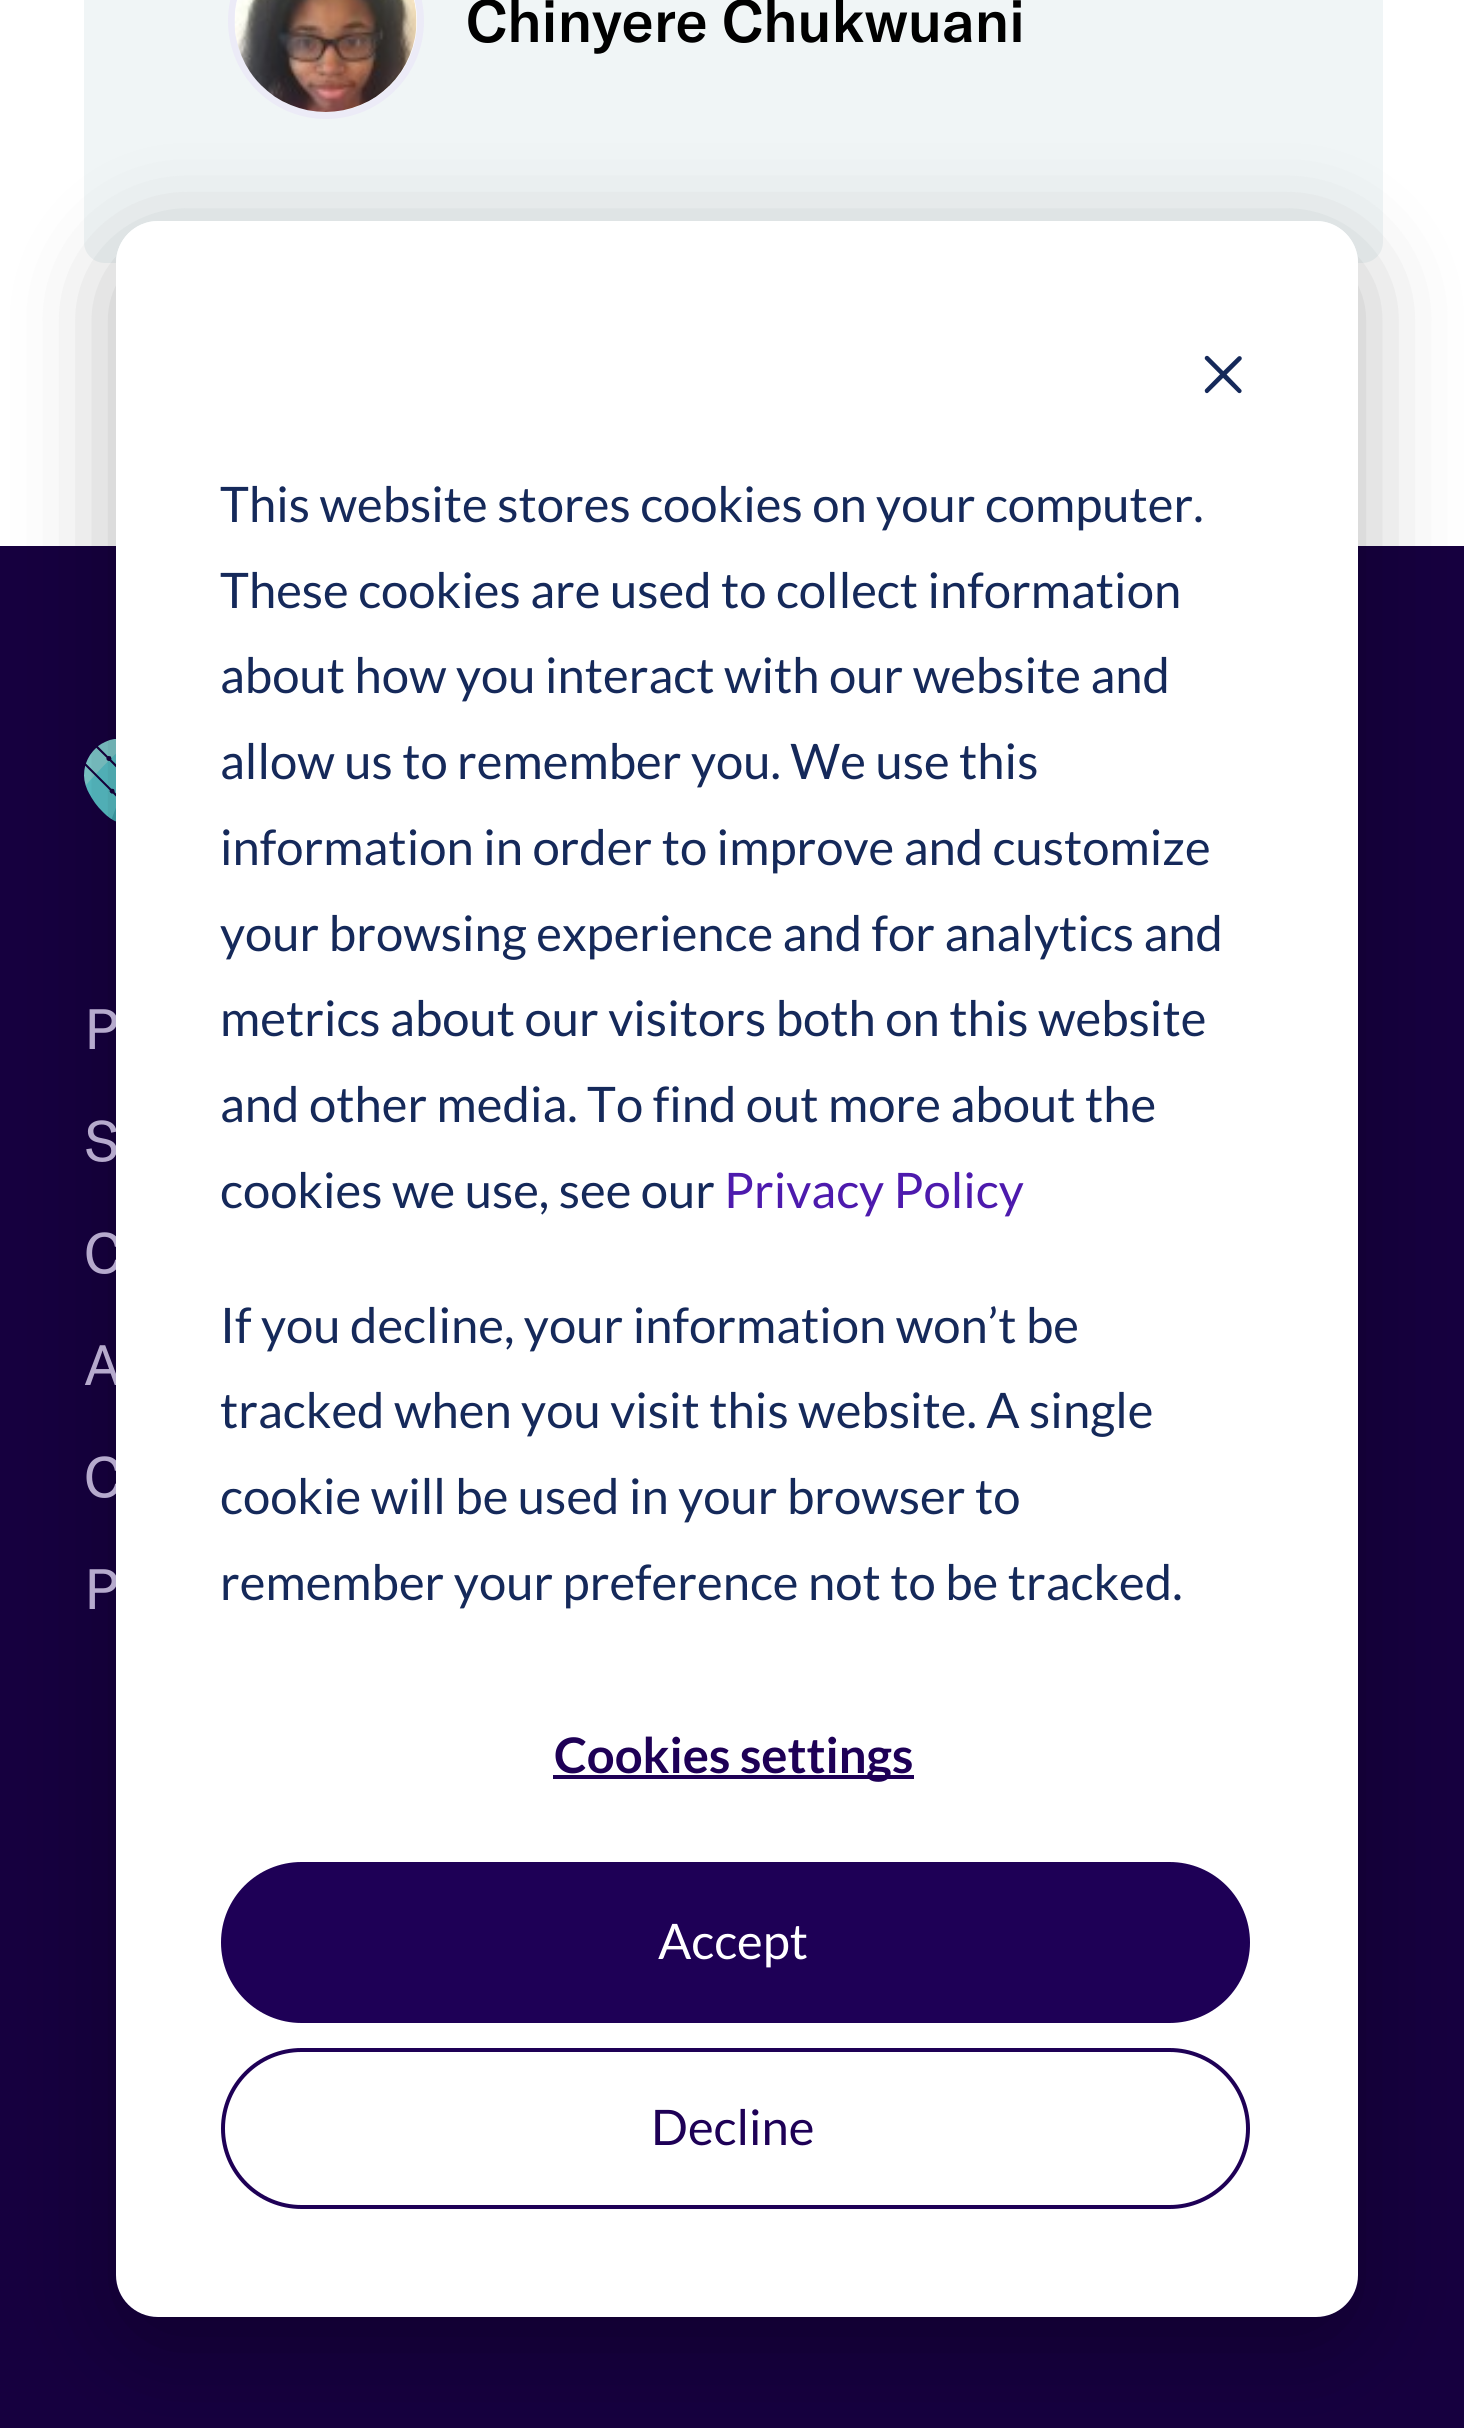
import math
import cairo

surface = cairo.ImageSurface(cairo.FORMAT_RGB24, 1464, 2428)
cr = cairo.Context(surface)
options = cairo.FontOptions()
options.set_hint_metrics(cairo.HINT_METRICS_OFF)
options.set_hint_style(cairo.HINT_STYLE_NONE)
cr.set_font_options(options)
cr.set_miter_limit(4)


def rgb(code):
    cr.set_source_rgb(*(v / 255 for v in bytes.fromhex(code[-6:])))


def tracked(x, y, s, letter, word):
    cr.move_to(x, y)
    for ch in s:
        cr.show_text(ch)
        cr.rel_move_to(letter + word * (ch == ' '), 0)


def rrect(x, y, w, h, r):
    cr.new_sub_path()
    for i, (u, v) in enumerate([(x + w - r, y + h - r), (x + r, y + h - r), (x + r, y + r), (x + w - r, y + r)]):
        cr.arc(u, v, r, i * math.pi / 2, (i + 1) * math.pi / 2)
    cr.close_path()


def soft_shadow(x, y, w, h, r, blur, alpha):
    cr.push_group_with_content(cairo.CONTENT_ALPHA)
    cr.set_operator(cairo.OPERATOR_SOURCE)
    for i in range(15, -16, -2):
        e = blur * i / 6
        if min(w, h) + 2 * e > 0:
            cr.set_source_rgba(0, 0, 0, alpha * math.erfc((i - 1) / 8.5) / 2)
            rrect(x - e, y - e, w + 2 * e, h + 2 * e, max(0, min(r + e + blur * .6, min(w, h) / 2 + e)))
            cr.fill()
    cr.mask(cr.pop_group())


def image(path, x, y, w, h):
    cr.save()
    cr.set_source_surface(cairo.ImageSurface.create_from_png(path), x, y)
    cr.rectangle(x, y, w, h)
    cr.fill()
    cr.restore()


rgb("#ffffff")
cr.paint()
rgb("#f0f5f6")
rrect(84, -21, 1299, 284, 21)
cr.fill()
rgb("#ffffff")
cr.arc(326, 21, 94.5, 0, 2 * math.pi)
cr.fill_preserve()
rgb("#ecebf7")
cr.set_line_width(7)
cr.stroke()
image("img/1.png", 234, 0, 183, 112)
rgb("#16003f")
cr.rectangle(0, 546, 1464, 1882)
cr.fill()
image("img/2.png", 84, 739, 32, 83)
cr.save()
cr.set_fill_rule(cairo.FILL_RULE_EVEN_ODD)
cr.new_path()
cr.move_to(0, 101)
cr.line_to(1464, 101)
cr.line_to(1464, 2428)
cr.line_to(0, 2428)
cr.close_path()
cr.move_to(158, 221)
cr.line_to(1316, 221)
cr.curve_to(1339, 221, 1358, 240, 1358, 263)
cr.line_to(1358, 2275)
cr.curve_to(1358, 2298, 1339, 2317, 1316, 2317)
cr.line_to(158, 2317)
cr.curve_to(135, 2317, 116, 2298, 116, 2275)
cr.line_to(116, 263)
cr.curve_to(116, 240, 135, 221, 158, 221)
cr.close_path()
cr.clip()
rgb("#000000")
soft_shadow(116, 249, 1242, 2096, 42, 49, 0.28)
cr.restore()
cr.select_font_face("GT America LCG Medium")
cr.set_font_size(59)
rgb("#000000")
tracked(466, 42, "Chinyere Chukwuani", -0.5, 0)
cr.select_font_face("GT America LCG")
cr.set_font_size(56)
rgb("#b6aacd")
for x, y, s in [
    (84, 1049, "P"),
    (84, 1161, "S"),
    (84, 1273, "C"),
    (84, 1385, "A"),
    (84, 1497, "C"),
    (84, 1609, "P"),
]:
    cr.move_to(x, y)
    cr.show_text(s)
rgb("#ffffff")
rrect(116, 221, 1242, 2096, 42)
cr.fill()
image("img/3.png", 1204, 355, 38, 39)
cr.select_font_face("Lato")
cr.set_font_size(49)
rgb("#15295a")
for x, y, s in [
    (220, 522, "This website stores cookies on your computer."),
    (220, 608, "These cookies are used to collect information"),
    (220, 693, "about how you interact with our website and"),
    (220, 779, "allow us to remember you. We use this"),
    (220, 865, "information in order to improve and customize"),
    (220, 951, "your browsing experience and for analytics and"),
    (220, 1036, "metrics about our visitors both on this website"),
    (220, 1122, "and other media. To find out more about the"),
    (220, 1208, "cookies we use, see our"),
]:
    cr.move_to(x, y)
    cr.show_text(s)
rgb("#4d1aad")
cr.move_to(724, 1208)
cr.show_text("Privacy Policy")
rgb("#15295a")
for x, y, s in [
    (220, 1343, "If you decline, your information won’t be"),
    (220, 1428, "tracked when you visit this website. A single"),
    (220, 1514, "cookie will be used in your browser to"),
    (220, 1600, "remember your preference not to be tracked."),
]:
    cr.move_to(x, y)
    cr.show_text(s)
rgb("#1e0056")
cr.rectangle(553, 1775, 361, 4)
cr.fill()
cr.select_font_face("Lato", cairo.FONT_SLANT_NORMAL, cairo.FONT_WEIGHT_BOLD)
cr.move_to(554, 1773)
cr.show_text("Cookies settings")
rrect(223, 1864, 1025, 157, 78.5)
cr.fill_preserve()
cr.set_line_width(4)
cr.stroke()
cr.select_font_face("Lato")
rgb("#ffffff")
cr.move_to(658, 1959)
cr.show_text("Accept")
rrect(223, 2050, 1025, 157, 78.5)
rgb("#1e0056")
cr.stroke()
cr.move_to(651, 2145)
cr.show_text("Decline")
surface.write_to_png("page.png")
